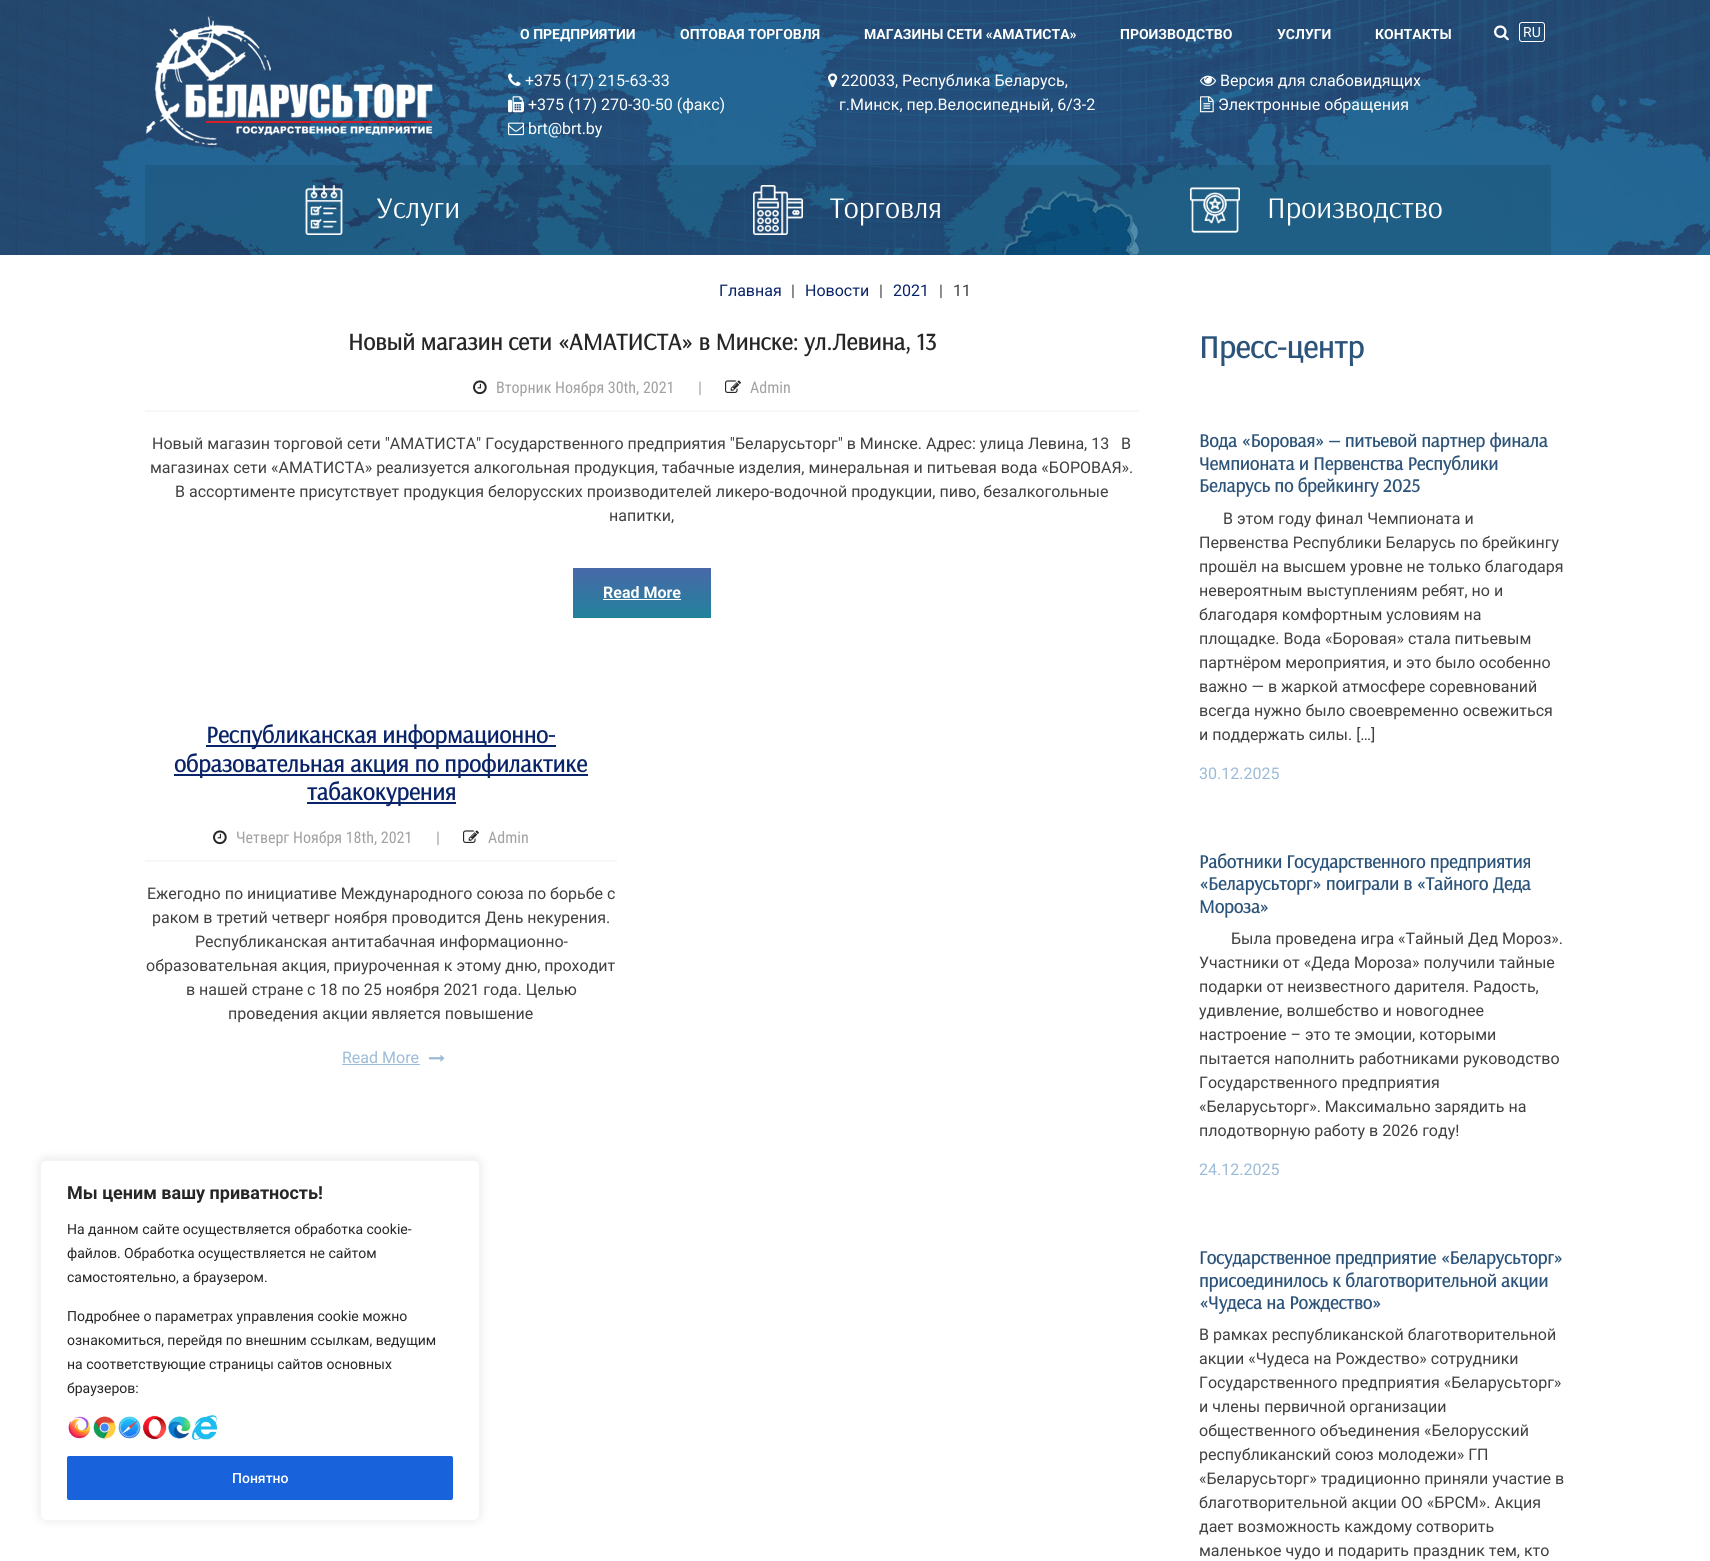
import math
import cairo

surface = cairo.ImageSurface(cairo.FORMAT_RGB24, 1710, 1561)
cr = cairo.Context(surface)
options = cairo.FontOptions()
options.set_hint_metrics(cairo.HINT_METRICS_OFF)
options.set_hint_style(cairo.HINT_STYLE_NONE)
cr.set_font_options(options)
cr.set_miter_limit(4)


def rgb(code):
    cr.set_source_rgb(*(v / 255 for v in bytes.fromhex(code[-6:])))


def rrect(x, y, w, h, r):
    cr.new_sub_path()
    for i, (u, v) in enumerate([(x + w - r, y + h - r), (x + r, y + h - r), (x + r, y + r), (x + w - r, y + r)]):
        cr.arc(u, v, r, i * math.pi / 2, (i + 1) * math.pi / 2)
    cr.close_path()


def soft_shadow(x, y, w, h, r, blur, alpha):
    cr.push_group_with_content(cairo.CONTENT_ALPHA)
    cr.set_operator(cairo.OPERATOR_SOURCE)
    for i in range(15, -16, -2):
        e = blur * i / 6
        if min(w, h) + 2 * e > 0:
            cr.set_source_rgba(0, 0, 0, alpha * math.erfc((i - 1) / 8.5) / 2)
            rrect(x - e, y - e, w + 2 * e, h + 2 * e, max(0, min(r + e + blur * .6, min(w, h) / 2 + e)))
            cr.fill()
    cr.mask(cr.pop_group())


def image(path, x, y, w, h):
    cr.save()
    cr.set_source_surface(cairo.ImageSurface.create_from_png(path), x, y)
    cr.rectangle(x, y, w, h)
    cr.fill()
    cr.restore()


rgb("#ffffff")
cr.paint()
image("img/1.png", 0, 0, 1710, 255)
image("img/2.png", 145, 16, 288, 129)
image("img/3.png", 1494, 25, 15, 16)
rrect(1519.5, 22.5, 25, 19, 2.5)
rgb("#ffffff")
cr.set_line_width(1)
cr.stroke()
image("img/4.png", 508, 73, 13, 13)
image("img/5.png", 508, 96, 16, 17)
image("img/6.png", 508, 122, 16, 14)
image("img/7.png", 828, 73, 10, 15)
image("img/8.png", 1200, 75, 16, 11)
image("img/9.png", 1200, 96, 14, 17)
cr.set_source_rgba(0, 0, 0, 0.1)
cr.rectangle(145, 165, 469, 90)
cr.fill()
image("img/10.png", 305, 185, 38, 50)
cr.rectangle(614, 165, 468, 90)
cr.fill()
image("img/11.png", 753, 185, 50, 50)
cr.rectangle(1082, 165, 469, 90)
cr.fill()
image("img/12.png", 1190, 187, 50, 46)
rgb("#f7f7f7")
cr.rectangle(145, 410, 994, 2)
cr.fill()
image("img/13.png", 473, 380, 14, 15)
image("img/14.png", 725, 380, 16, 13)
gradient = cairo.LinearGradient(573, 568, 573, 618)
gradient.add_color_stop_rgba(0, 0.282, 0.408, 0.659, 1)
gradient.add_color_stop_rgba(1, 0.133, 0.51, 0.612, 1)
cr.set_source(gradient)
cr.rectangle(573, 568, 138, 50)
cr.fill()
for x, y, w, h, color in [
    (603, 599, 78, 1, "#ffffff"),
    (206, 745, 350, 2, "#0a246a"),
    (174, 774, 414, 2, "#0a246a"),
    (307, 802, 149, 2, "#0a246a"),
    (145, 860, 472, 2, "#f7f7f7"),
]:
    rgb(color)
    cr.rectangle(x, y, w, h)
    cr.fill()
image("img/13.png", 213, 830, 14, 15)
image("img/14.png", 463, 830, 16, 13)
rgb("#9cbbd8")
cr.rectangle(342, 1064, 78, 1)
cr.fill()
image("img/15.png", 429, 1055, 16, 7)
rgb("#acabab")
soft_shadow(40, 1159, 440, 361, 6, 5, 0.3)
rgb("#ffffff")
rrect(40.5, 1160.5, 439, 360, 5.5)
cr.fill_preserve()
rgb("#f4f4f4")
cr.stroke()
image("img/16.png", 68, 1416, 23, 23)
image("img/17.png", 93, 1416, 23, 23)
image("img/18.png", 118, 1416, 23, 23)
image("img/19.png", 142, 1415, 25, 25)
image("img/20.png", 168, 1416, 23, 23)
image("img/21.png", 192, 1415, 25, 25)
rgb("#1863dc")
rrect(68, 1457, 384, 42, 1)
cr.fill_preserve()
cr.set_line_width(2)
cr.stroke()
cr.select_font_face("Roboto", cairo.FONT_SLANT_NORMAL, cairo.FONT_WEIGHT_BOLD)
cr.set_font_size(14)
rgb("#ffffff")
for x, y, s in [
    (520, 39, "О ПРЕДПРИЯТИИ"),
    (680, 39, "ОПТОВАЯ ТОРГОВЛЯ"),
    (864, 39, "МАГАЗИНЫ СЕТИ «АМАТИСТА»"),
    (1120, 39, "ПРОИЗВОДСТВО"),
    (1277, 39, "УСЛУГИ"),
    (1375, 39, "КОНТАКТЫ"),
]:
    cr.move_to(x, y)
    cr.show_text(s)
cr.select_font_face("Roboto")
cr.move_to(1523, 37)
cr.show_text("RU")
cr.set_font_size(16)
for x, y, s in [
    (525, 86, "+375 (17) 215-63-33"),
    (528, 110, "+375 (17) 270-30-50 (факс)"),
    (528, 134, "brt@brt.by"),
    (841, 86, "220033, Республика Беларусь,"),
    (839, 110, "г.Минск, пер.Велосипедный, 6/3-2"),
    (1220, 86, "Версия для слабовидящих"),
    (1218, 110, "Электронные обращения"),
]:
    cr.move_to(x, y)
    cr.show_text(s)
cr.select_font_face("Arsenal")
cr.set_font_size(30)
for x, y, s in [
    (376, 218, "Услуги"),
    (830, 218, "Торговля"),
    (1267, 218, "Производство"),
]:
    cr.move_to(x, y)
    cr.show_text(s)
cr.select_font_face("Roboto")
cr.set_font_size(16)
rgb("#0a246a")
cr.move_to(719, 296)
cr.show_text("Главная")
rgb("#404040")
cr.move_to(791, 296)
cr.show_text("|")
rgb("#0a246a")
cr.move_to(805, 296)
cr.show_text("Новости")
rgb("#404040")
cr.move_to(879, 296)
cr.show_text("|")
rgb("#0a246a")
cr.move_to(893, 296)
cr.show_text("2021")
rgb("#404040")
cr.move_to(939, 296)
cr.show_text("|")
cr.move_to(953, 296)
cr.show_text("11")
cr.select_font_face("Arsenal", cairo.FONT_SLANT_NORMAL, cairo.FONT_WEIGHT_BOLD)
cr.set_font_size(24)
rgb("#262626")
cr.move_to(348, 350)
cr.show_text("Новый магазин сети «АМАТИСТА» в Минске: ул.Левина, 13")
cr.select_font_face("Roboto Condensed")
cr.set_font_size(16)
rgb("#a1a1a1")
for x, y, s in [
    (496, 393, "Вторник Ноября 30th, 2021"),
    (698, 393, "|"),
    (750, 393, "Admin"),
]:
    cr.move_to(x, y)
    cr.show_text(s)
cr.select_font_face("Roboto")
rgb("#404040")
for x, y, s in [
    (152, 449, "Новый магазин торговой сети \"АМАТИСТА\" Государственного предприятия \"Беларусьторг\" в Минске. Адрес: улица Левина, 13   В"),
    (150, 473, "магазинах сети «АМАТИСТА» реализуется алкогольная продукция, табачные изделия, минеральная и питьевая вода «БОРОВАЯ»."),
    (175, 497, "В ассортименте присутствует продукция белорусских производителей ликеро-водочной продукции, пиво, безалкогольные"),
    (609, 521, "напитки,"),
]:
    cr.move_to(x, y)
    cr.show_text(s)
cr.select_font_face("Roboto", cairo.FONT_SLANT_NORMAL, cairo.FONT_WEIGHT_BOLD)
rgb("#ffffff")
cr.move_to(603, 598)
cr.show_text("Read More")
cr.select_font_face("Arsenal", cairo.FONT_SLANT_NORMAL, cairo.FONT_WEIGHT_BOLD)
cr.set_font_size(24)
rgb("#0a246a")
for x, y, s in [
    (206, 743, "Республиканская информационно-"),
    (174, 772, "образовательная акция по профилактике"),
    (307, 800, "табакокурения"),
]:
    cr.move_to(x, y)
    cr.show_text(s)
cr.select_font_face("Roboto Condensed")
cr.set_font_size(16)
rgb("#a1a1a1")
for x, y, s in [
    (236, 843, "Четверг Ноября 18th, 2021"),
    (436, 843, "|"),
    (488, 843, "Admin"),
]:
    cr.move_to(x, y)
    cr.show_text(s)
cr.select_font_face("Roboto")
rgb("#404040")
for x, y, s in [
    (147, 899, "Ежегодно по инициативе Международного союза по борьбе с"),
    (152, 923, "раком в третий четверг ноября проводится День некурения."),
    (195, 947, "Республиканская антитабачная информационно-"),
    (146, 971, "образовательная акция, приуроченная к этому дню, проходит"),
    (186, 995, "в нашей стране с 18 по 25 ноября 2021 года. Целью"),
    (228, 1019, "проведения акции является повышение"),
]:
    cr.move_to(x, y)
    cr.show_text(s)
rgb("#9cbbd8")
cr.move_to(342, 1063)
cr.show_text("Read More")
cr.select_font_face("Arsenal", cairo.FONT_SLANT_NORMAL, cairo.FONT_WEIGHT_BOLD)
cr.set_font_size(32)
rgb("#2c5379")
cr.move_to(1199, 358)
cr.show_text("Пресс-центр")
cr.set_font_size(18.75)
for x, y, s in [
    (1199, 447, "Вода «Боровая» — питьевой партнер финала"),
    (1199, 470, "Чемпионата и Первенства Республики"),
    (1199, 492, "Беларусь по брейкингу 2025"),
]:
    cr.move_to(x, y)
    cr.show_text(s)
cr.select_font_face("Roboto")
cr.set_font_size(16)
rgb("#404040")
for x, y, s in [
    (1223, 524, "В этом году финал Чемпионата и"),
    (1199, 548, "Первенства Республики Беларусь по брейкингу"),
    (1199, 572, "прошёл на высшем уровне не только благодаря"),
    (1199, 596, "невероятным выступлениям ребят, но и"),
    (1199, 620, "благодаря комфортным условиям на"),
    (1199, 644, "площадке. Вода «Боровая» стала питьевым"),
    (1199, 668, "партнёром мероприятия, и это было особенно"),
    (1199, 692, "важно — в жаркой атмосфере соревнований"),
    (1199, 716, "всегда нужно было своевременно освежиться"),
    (1199, 740, "и поддержать силы. […]"),
]:
    cr.move_to(x, y)
    cr.show_text(s)
rgb("#9cbbd8")
cr.move_to(1199, 779)
cr.show_text("30.12.2025")
cr.select_font_face("Arsenal", cairo.FONT_SLANT_NORMAL, cairo.FONT_WEIGHT_BOLD)
cr.set_font_size(18.75)
rgb("#2c5379")
for x, y, s in [
    (1199, 868, "Работники Государственного предприятия"),
    (1199, 890, "«Беларусьторг» поиграли в «Тайного Деда"),
    (1199, 913, "Мороза»"),
]:
    cr.move_to(x, y)
    cr.show_text(s)
cr.select_font_face("Roboto")
cr.set_font_size(16)
rgb("#404040")
for x, y, s in [
    (1231, 944, "Была проведена игра «Тайный Дед Мороз»."),
    (1199, 968, "Участники от «Деда Мороза» получили тайные"),
    (1199, 992, "подарки от неизвестного дарителя. Радость,"),
    (1199, 1016, "удивление, волшебство и новогоднее"),
    (1199, 1040, "настроение – это те эмоции, которыми"),
    (1199, 1064, "пытается наполнить работниками руководство"),
    (1199, 1088, "Государственного предприятия"),
    (1199, 1112, "«Беларусьторг». Максимально зарядить на"),
    (1199, 1136, "плодотворную работу в 2026 году!"),
]:
    cr.move_to(x, y)
    cr.show_text(s)
rgb("#9cbbd8")
cr.move_to(1199, 1175)
cr.show_text("24.12.2025")
cr.select_font_face("Arsenal", cairo.FONT_SLANT_NORMAL, cairo.FONT_WEIGHT_BOLD)
cr.set_font_size(18.75)
rgb("#2c5379")
for x, y, s in [
    (1199, 1264, "Государственное предприятие «Беларусьторг»"),
    (1199, 1287, "присоединилось к благотворительной акции"),
    (1199, 1309, "«Чудеса на Рождество»"),
]:
    cr.move_to(x, y)
    cr.show_text(s)
cr.select_font_face("Roboto")
cr.set_font_size(16)
rgb("#404040")
for x, y, s in [
    (1199, 1340, "В рамках республиканской благотворительной"),
    (1199, 1364, "акции «Чудеса на Рождество» сотрудники"),
    (1199, 1388, "Государственного предприятия «Беларусьторг»"),
    (1199, 1412, "и члены первичной организации"),
    (1199, 1436, "общественного объединения «Белорусский"),
    (1199, 1460, "республиканский союз молодежи» ГП"),
    (1199, 1484, "«Беларусьторг» традиционно приняли участие в"),
    (1199, 1508, "благотворительной акции ОО «БРСМ». Акция"),
    (1199, 1532, "дает возможность каждому сотворить"),
    (1199, 1556, "маленькое чудо и подарить праздник тем, кто"),
]:
    cr.move_to(x, y)
    cr.show_text(s)
cr.select_font_face("Roboto", cairo.FONT_SLANT_NORMAL, cairo.FONT_WEIGHT_BOLD)
cr.set_font_size(18)
rgb("#262626")
cr.move_to(67, 1199)
cr.show_text("Мы ценим вашу приватность!")
cr.select_font_face("Roboto")
cr.set_font_size(14)
for x, y, s in [
    (67, 1234, "На данном сайте осуществляется обработка cookie-"),
    (67, 1258, "файлов. Обработка осуществляется не сайтом"),
    (67, 1282, "самостоятельно, а браузером."),
    (67, 1321, "Подробнее о параметрах управления cookie можно"),
    (67, 1345, "ознакомиться, перейдя по внешним ссылкам, ведущим"),
    (67, 1369, "на соответствующие страницы сайтов основных"),
    (67, 1393, "браузеров:"),
]:
    cr.move_to(x, y)
    cr.show_text(s)
cr.select_font_face("Roboto Medium")
rgb("#ffffff")
cr.move_to(232, 1483)
cr.show_text("Понятно")
surface.write_to_png("page.png")
